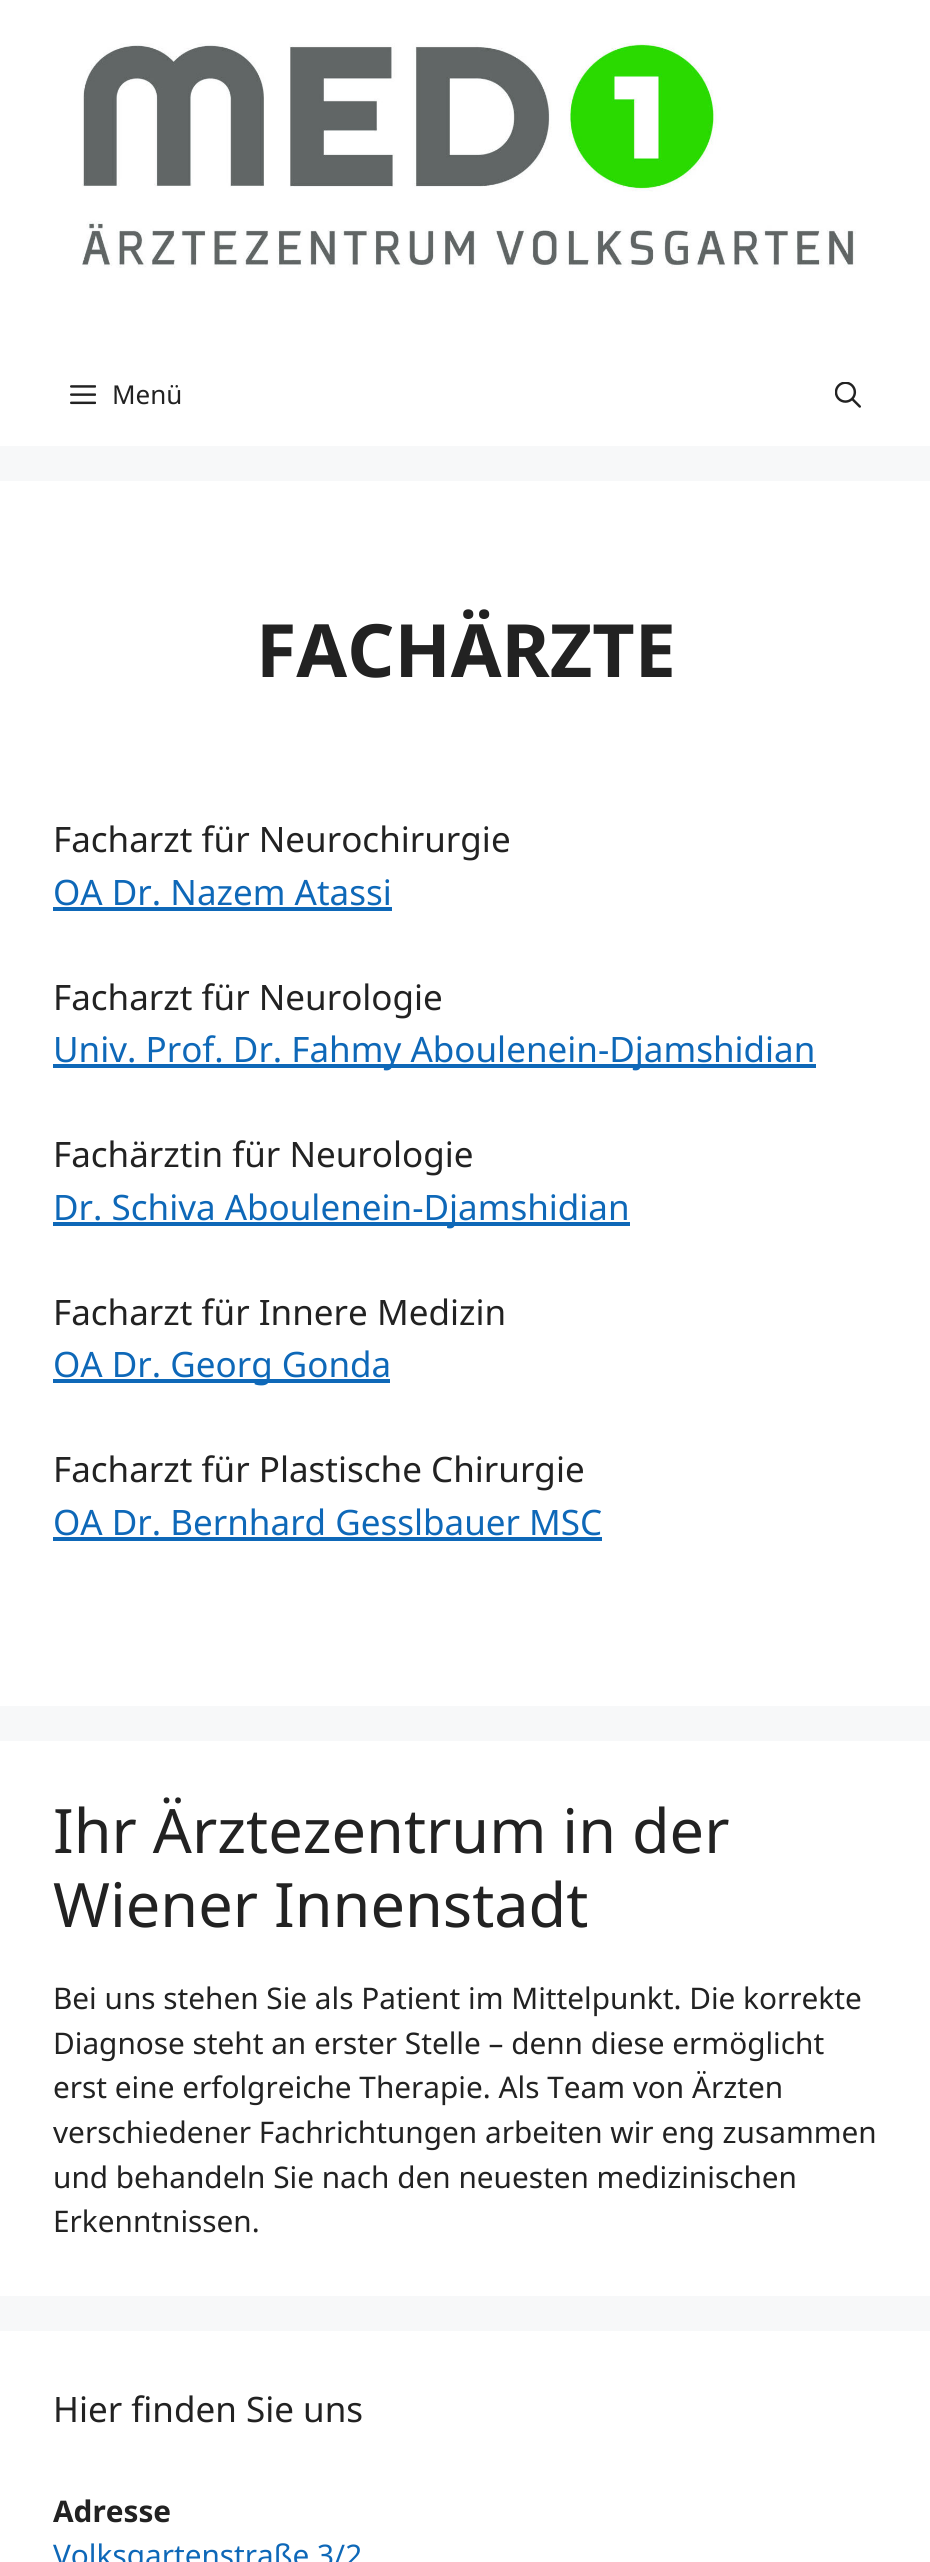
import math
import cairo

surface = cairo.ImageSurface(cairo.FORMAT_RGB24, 930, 2562)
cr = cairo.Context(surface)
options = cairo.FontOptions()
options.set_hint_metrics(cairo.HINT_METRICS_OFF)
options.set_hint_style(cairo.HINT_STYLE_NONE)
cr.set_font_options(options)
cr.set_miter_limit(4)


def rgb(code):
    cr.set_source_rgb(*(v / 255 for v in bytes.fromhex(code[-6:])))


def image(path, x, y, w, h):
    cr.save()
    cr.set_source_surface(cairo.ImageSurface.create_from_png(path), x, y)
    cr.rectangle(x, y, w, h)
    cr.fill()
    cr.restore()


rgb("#f7f8f9")
cr.paint()
rgb("#ffffff")
cr.rectangle(0, 0, 930, 446)
cr.fill()
image("img/1.png", 82, 43, 774, 225)
image("img/2.png", 70, 385, 26, 20)
image("img/3.png", 835, 382, 26, 26)
for x, y, w, h, color in [
    (0, 481, 930, 1225, "#ffffff"),
    (53, 907, 339, 4, "#0e68b8"),
    (53, 1064, 763, 4, "#0e68b8"),
    (53, 1222, 577, 4, "#0e68b8"),
    (53, 1379, 337, 4, "#0e68b8"),
    (53, 1537, 549, 4, "#0e68b8"),
    (0, 1741, 930, 555, "#ffffff"),
    (0, 2331, 930, 231, "#ffffff"),
]:
    rgb(color)
    cr.rectangle(x, y, w, h)
    cr.fill()
cr.select_font_face("Noto Sans")
cr.set_font_size(26)
rgb("#222222")
cr.move_to(112, 404)
cr.show_text("Menü")
cr.select_font_face("Noto Sans", cairo.FONT_SLANT_NORMAL, cairo.FONT_WEIGHT_BOLD)
cr.set_font_size(73.5)
cr.move_to(256, 677)
cr.show_text("FACHÄRZTE")
cr.select_font_face("Noto Sans")
cr.set_font_size(35)
cr.move_to(53, 852)
cr.show_text("Facharzt für Neurochirurgie")
rgb("#0e68b8")
cr.move_to(53, 905)
cr.show_text("OA Dr. Nazem Atassi")
rgb("#222222")
cr.move_to(53, 1010)
cr.show_text("Facharzt für Neurologie")
rgb("#0e68b8")
cr.move_to(53, 1062)
cr.show_text("Univ. Prof. Dr. Fahmy Aboulenein-Djamshidian")
rgb("#222222")
cr.move_to(53, 1167)
cr.show_text("Fachärztin für Neurologie")
rgb("#0e68b8")
cr.move_to(53, 1220)
cr.show_text("Dr. Schiva Aboulenein-Djamshidian")
rgb("#222222")
cr.move_to(53, 1325)
cr.show_text("Facharzt für Innere Medizin")
rgb("#0e68b8")
cr.move_to(53, 1377)
cr.show_text("OA Dr. Georg Gonda")
rgb("#222222")
cr.move_to(53, 1482)
cr.show_text("Facharzt für Plastische Chirurgie")
rgb("#0e68b8")
cr.move_to(53, 1535)
cr.show_text("OA Dr. Bernhard Gesslbauer MSC")
cr.set_font_size(61.25)
rgb("#222222")
cr.move_to(53, 1853)
cr.show_text("Ihr Ärztezentrum in der")
cr.move_to(53, 1927)
cr.show_text("Wiener Innenstadt")
cr.set_font_size(29.75)
for x, y, s in [
    (53, 2009, "Bei uns stehen Sie als Patient im Mittelpunkt. Die korrekte"),
    (53, 2054, "Diagnose steht an erster Stelle – denn diese ermöglicht"),
    (53, 2098, "erst eine erfolgreiche Therapie. Als Team von Ärzten"),
    (53, 2143, "verschiedener Fachrichtungen arbeiten wir eng zusammen"),
    (53, 2188, "und behandeln Sie nach den neuesten medizinischen"),
    (53, 2232, "Erkenntnissen."),
]:
    cr.move_to(x, y)
    cr.show_text(s)
cr.set_font_size(35)
cr.move_to(53, 2422)
cr.show_text("Hier finden Sie uns")
cr.select_font_face("Noto Sans", cairo.FONT_SLANT_NORMAL, cairo.FONT_WEIGHT_BOLD)
cr.set_font_size(29.75)
cr.move_to(53, 2522)
cr.show_text("Adresse")
cr.select_font_face("Noto Sans")
rgb("#0e68b8")
cr.move_to(53, 2566)
cr.show_text("Volksgartenstraße 3/2")
surface.write_to_png("page.png")
